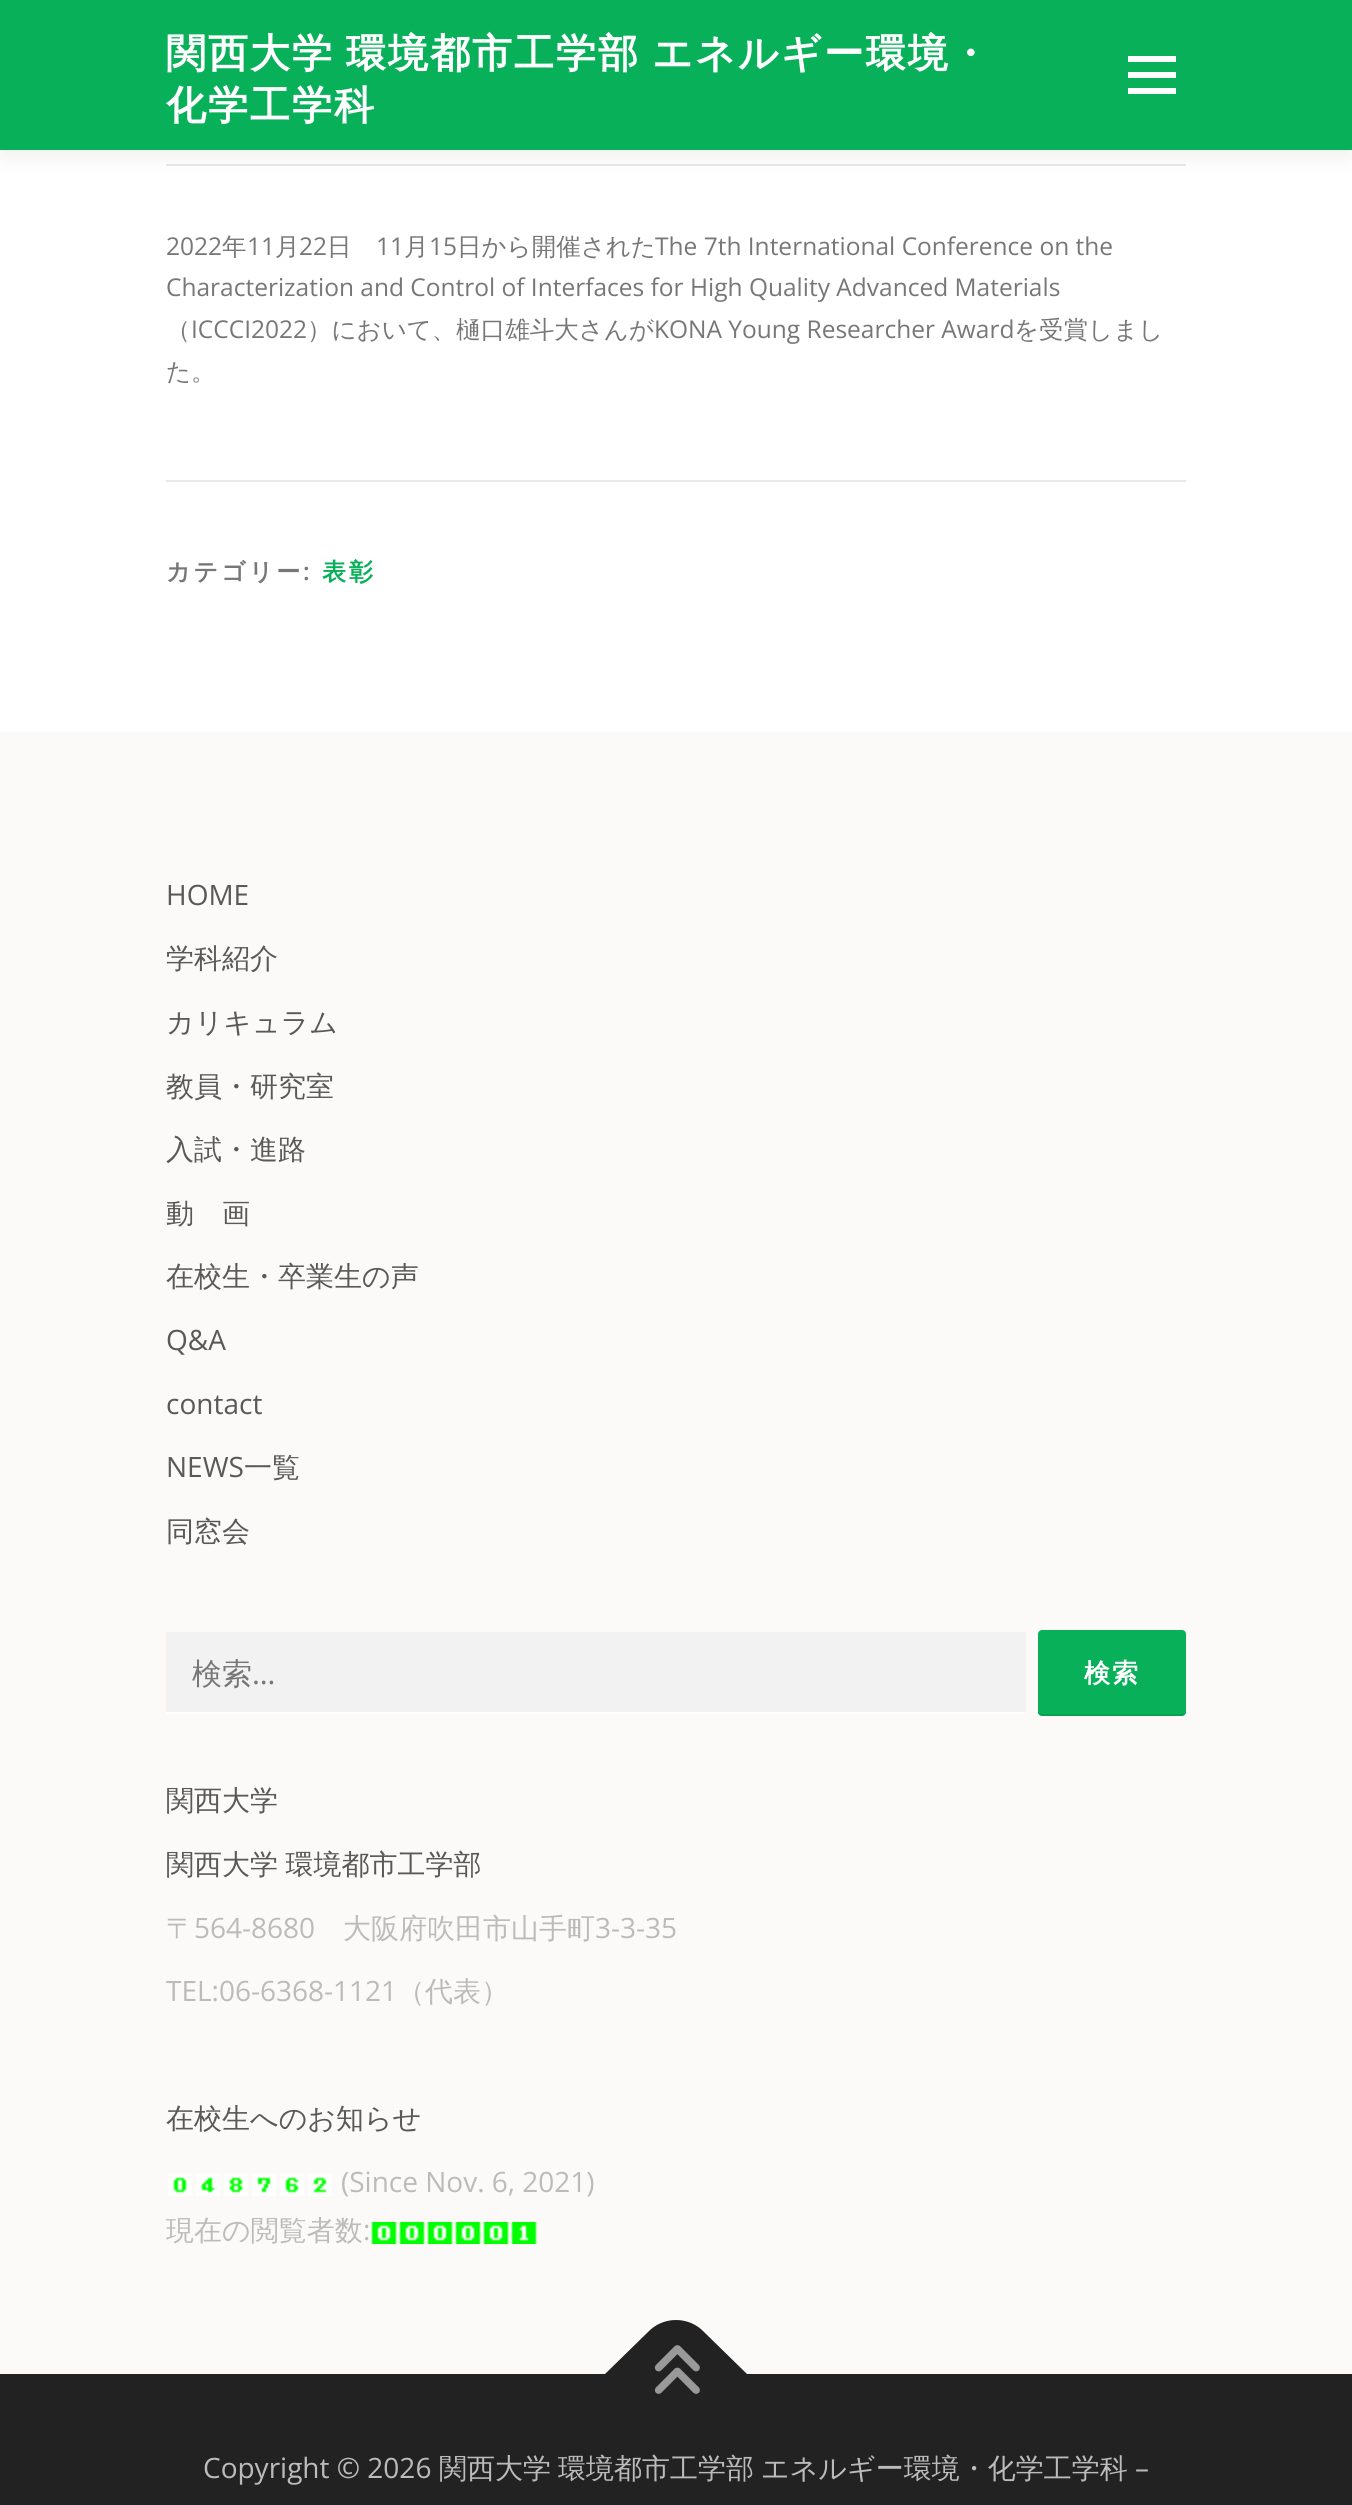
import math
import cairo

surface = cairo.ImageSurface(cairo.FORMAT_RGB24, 1352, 2505)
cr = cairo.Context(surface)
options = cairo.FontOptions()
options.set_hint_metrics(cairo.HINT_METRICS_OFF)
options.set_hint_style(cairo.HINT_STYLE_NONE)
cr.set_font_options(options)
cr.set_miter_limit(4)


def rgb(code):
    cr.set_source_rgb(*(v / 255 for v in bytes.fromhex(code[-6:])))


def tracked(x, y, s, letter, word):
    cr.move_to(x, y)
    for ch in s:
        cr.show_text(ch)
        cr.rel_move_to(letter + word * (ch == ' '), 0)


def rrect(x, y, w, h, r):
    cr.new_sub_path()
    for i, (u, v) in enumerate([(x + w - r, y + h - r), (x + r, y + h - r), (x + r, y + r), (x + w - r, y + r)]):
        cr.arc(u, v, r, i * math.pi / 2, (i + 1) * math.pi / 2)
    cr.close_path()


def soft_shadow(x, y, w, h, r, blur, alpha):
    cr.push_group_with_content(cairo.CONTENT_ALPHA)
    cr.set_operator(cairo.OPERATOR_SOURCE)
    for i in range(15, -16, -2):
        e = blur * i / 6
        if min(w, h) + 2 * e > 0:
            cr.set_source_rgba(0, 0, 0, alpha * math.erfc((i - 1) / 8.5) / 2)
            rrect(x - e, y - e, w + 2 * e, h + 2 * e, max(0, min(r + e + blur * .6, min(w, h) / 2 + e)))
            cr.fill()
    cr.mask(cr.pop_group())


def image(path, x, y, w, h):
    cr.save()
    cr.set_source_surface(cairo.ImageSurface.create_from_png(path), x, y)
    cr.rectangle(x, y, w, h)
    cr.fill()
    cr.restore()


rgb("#ffffff")
cr.paint()
rgb("#e9e9e9")
cr.rectangle(166, 164, 1020, 2)
cr.fill()
rgb("#323232")
soft_shadow(0, 10, 1352, 150, 0, 10, 0.06)
for x, y, w, h, color in [
    (0, 0, 1352, 150, "#08b059"),
    (1128, 72, 48, 6, "#ffffff"),
    (1128, 56, 48, 6, "#ffffff"),
    (1128, 88, 48, 6, "#ffffff"),
    (166, 480, 1020, 2, "#e9e9e9"),
    (0, 732, 1352, 1642, "#fcfaf9"),
    (166, 1632, 860, 80, "#f2f2f2"),
    (166, 1712, 860, 2, "#ffffff"),
]:
    rgb(color)
    cr.rectangle(x, y, w, h)
    cr.fill()
rgb("#08b059")
rrect(1038, 1630, 148, 86, 4)
cr.fill()
cr.set_source_rgba(0, 0, 0, 0.1)
cr.new_path()
cr.move_to(1038, 1710)
cr.line_to(1038, 1712)
cr.curve_to(1038, 1714, 1040, 1716, 1042, 1716)
cr.line_to(1182, 1716)
cr.curve_to(1184, 1716, 1186, 1714, 1186, 1712)
cr.line_to(1186, 1710)
cr.line_to(1185, 1713)
cr.line_to(1182, 1714)
cr.line_to(1042, 1714)
cr.curve_to(1040, 1714, 1038, 1712, 1038, 1710)
cr.close_path()
cr.fill()
image("img/1.png", 168, 2174, 164, 22)
image("img/2.png", 371, 2222, 166, 22)
rgb("#222222")
cr.rectangle(0, 2374, 1352, 131)
cr.fill()
cr.new_path()
cr.move_to(605, 2374)
cr.line_to(648, 2332)
cr.curve_to(663, 2316, 689, 2316, 704, 2332)
cr.line_to(747, 2374)
cr.line_to(676, 2445)
cr.close_path()
cr.fill()
image("img/3.png", 654, 2345, 46, 49)
cr.select_font_face("WenQuanYi Zen Hei", cairo.FONT_SLANT_NORMAL, cairo.FONT_WEIGHT_BOLD)
cr.set_font_size(40)
rgb("#ffffff")
tracked(166, 67, "関西大学 環境都市工学部 エネルギー環境・", 2, -2)
tracked(166, 119, "化学工学科", 2, 0)
cr.select_font_face("Open Sans")
cr.set_font_size(24.5)
rgb("#777777")
cr.move_to(166, 255)
cr.show_text("2022")
cr.select_font_face("WenQuanYi Zen Hei Medium")
cr.move_to(222, 255)
cr.show_text("年")
cr.select_font_face("Open Sans")
cr.move_to(247, 255)
cr.show_text("11")
cr.select_font_face("WenQuanYi Zen Hei Medium")
cr.move_to(275, 255)
cr.show_text("月")
cr.select_font_face("Open Sans")
cr.move_to(299, 255)
cr.show_text("22")
cr.select_font_face("WenQuanYi Zen Hei Medium")
cr.move_to(327, 255)
cr.show_text("日")
cr.select_font_face("Open Sans")
cr.move_to(376, 255)
cr.show_text("11")
cr.select_font_face("WenQuanYi Zen Hei Medium")
cr.move_to(404, 255)
cr.show_text("月")
cr.select_font_face("Open Sans")
cr.move_to(429, 255)
cr.show_text("15")
cr.select_font_face("WenQuanYi Zen Hei Medium")
cr.move_to(457, 255)
cr.show_text("日から開催された")
cr.select_font_face("Open Sans")
cr.move_to(655, 255)
cr.show_text("The 7th International Conference on the")
cr.move_to(166, 296)
cr.show_text("Characterization and Control of Interfaces for High Quality Advanced Materials")
cr.select_font_face("WenQuanYi Zen Hei Medium")
cr.move_to(166, 338)
cr.show_text("（")
cr.select_font_face("Open Sans")
cr.move_to(191, 338)
cr.show_text("ICCCI2022")
cr.select_font_face("WenQuanYi Zen Hei Medium")
cr.move_to(307, 338)
cr.show_text("）において、樋口雄斗大さんが")
cr.select_font_face("Open Sans")
cr.move_to(654, 338)
cr.show_text("KONA Young Researcher Award")
cr.select_font_face("WenQuanYi Zen Hei Medium")
cr.move_to(1014, 338)
cr.show_text("を受賞しまし")
cr.move_to(166, 380)
cr.show_text("た。")
cr.select_font_face("WenQuanYi Zen Hei", cairo.FONT_SLANT_NORMAL, cairo.FONT_WEIGHT_BOLD)
cr.set_font_size(24)
tracked(166, 580, "カテゴリー", 3, 0)
cr.select_font_face("Open Sans SemiBold")
tracked(303, 580, ":", 3, 0)
cr.select_font_face("WenQuanYi Zen Hei", cairo.FONT_SLANT_NORMAL, cairo.FONT_WEIGHT_BOLD)
rgb("#08b059")
tracked(322, 580, "表彰", 3, 0)
cr.select_font_face("Open Sans")
cr.set_font_size(28)
rgb("#595959")
cr.move_to(166, 905)
cr.show_text("HOME")
cr.select_font_face("WenQuanYi Zen Hei Medium")
for x, y, s in [
    (166, 968, "学科紹介"),
    (166, 1032, "カリキュラム"),
    (166, 1096, "教員・研究室"),
    (166, 1159, "入試・進路"),
    (166, 1223, "動　画"),
    (166, 1286, "在校生・卒業生の声"),
]:
    cr.move_to(x, y)
    cr.show_text(s)
cr.select_font_face("Open Sans")
for x, y, s in [
    (166, 1350, "Q&A"),
    (166, 1414, "contact"),
    (166, 1477, "NEWS"),
]:
    cr.move_to(x, y)
    cr.show_text(s)
cr.select_font_face("WenQuanYi Zen Hei Medium")
cr.move_to(244, 1477)
cr.show_text("一覧")
cr.move_to(166, 1541)
cr.show_text("同窓会")
cr.set_font_size(30)
rgb("#777777")
cr.move_to(192, 1684)
cr.show_text("検索")
cr.select_font_face("Open Sans")
cr.move_to(252, 1684)
cr.show_text("…")
cr.select_font_face("WenQuanYi Zen Hei", cairo.FONT_SLANT_NORMAL, cairo.FONT_WEIGHT_BOLD)
cr.set_font_size(26)
rgb("#ffffff")
tracked(1084, 1682, "検索", 2, 0)
cr.select_font_face("WenQuanYi Zen Hei Medium")
cr.set_font_size(28)
rgb("#595959")
cr.move_to(166, 1810)
cr.show_text("関西大学")
tracked(166, 1874, "関西大学 環境都市工学部", 0, -1)
rgb("#bbbbbb")
cr.move_to(166, 1938)
cr.show_text("〒")
cr.select_font_face("Open Sans")
cr.move_to(194, 1938)
cr.show_text("564-8680")
cr.select_font_face("WenQuanYi Zen Hei Medium")
cr.move_to(343, 1938)
cr.show_text("大阪府吹田市山手町")
cr.select_font_face("Open Sans")
cr.move_to(595, 1938)
cr.show_text("3-3-35")
cr.move_to(166, 2001)
cr.show_text("TEL:06-6368-1121")
cr.select_font_face("WenQuanYi Zen Hei Medium")
cr.move_to(397, 2001)
cr.show_text("（代表）")
rgb("#595959")
cr.move_to(166, 2128)
cr.show_text("在校生へのお知らせ")
cr.select_font_face("Open Sans")
rgb("#bbbbbb")
cr.move_to(341, 2192)
cr.show_text("(Since Nov. 6, 2021)")
cr.select_font_face("WenQuanYi Zen Hei Medium")
cr.move_to(166, 2240)
cr.show_text("現在の閲覧者数")
cr.select_font_face("Open Sans")
cr.move_to(363, 2240)
cr.show_text(":")
cr.move_to(203, 2478)
cr.show_text("Copyright © 2026")
cr.select_font_face("WenQuanYi Zen Hei Medium")
for x, y, s in [
    (439, 2478, "関西大学"),
    (558, 2478, "環境都市工学部"),
    (761, 2478, "エネルギー環境・化学工学科"),
]:
    cr.move_to(x, y)
    cr.show_text(s)
cr.select_font_face("Open Sans")
cr.move_to(1135, 2478)
cr.show_text("–")
surface.write_to_png("page.png")
